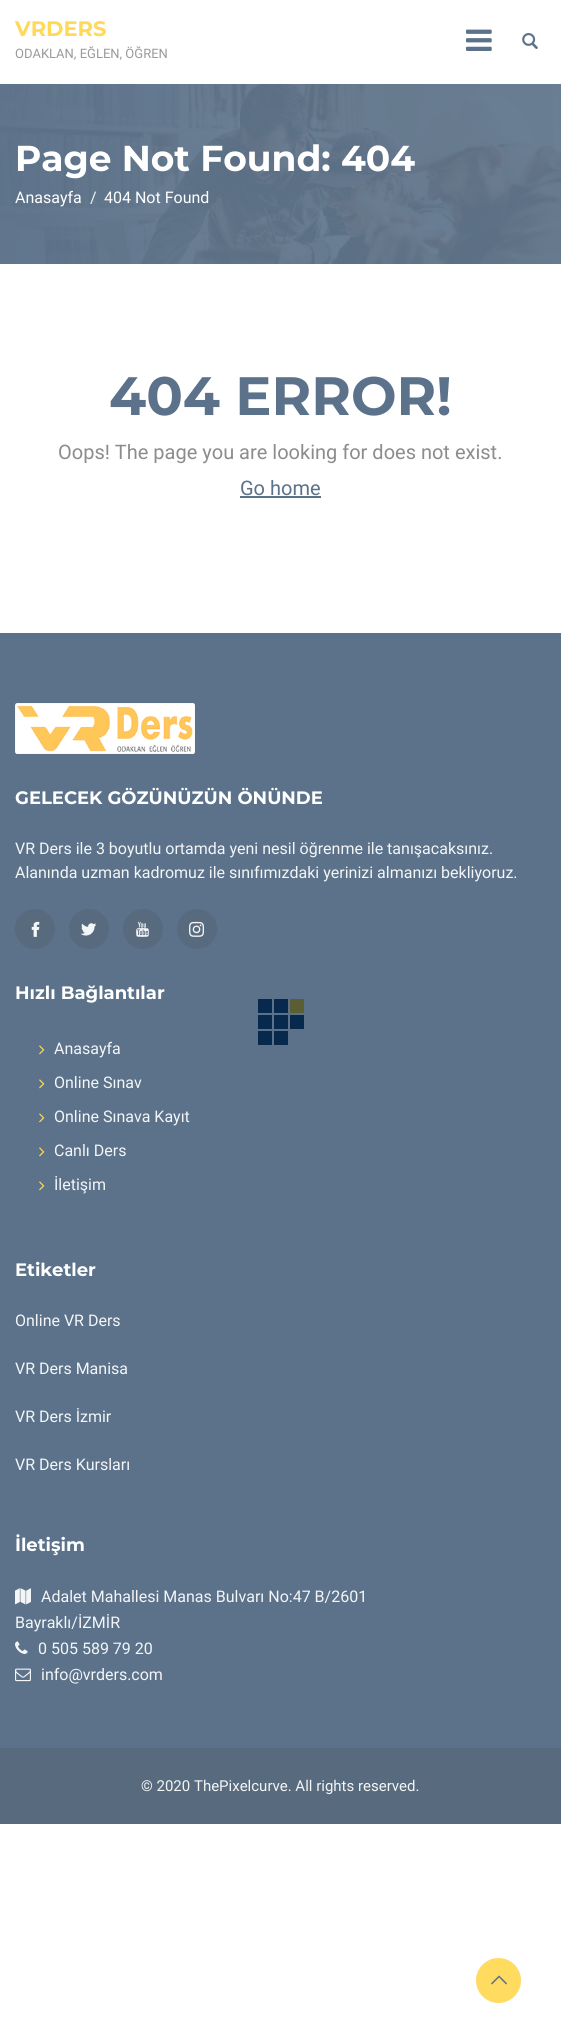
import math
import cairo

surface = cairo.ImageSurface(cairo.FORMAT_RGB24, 561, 2043)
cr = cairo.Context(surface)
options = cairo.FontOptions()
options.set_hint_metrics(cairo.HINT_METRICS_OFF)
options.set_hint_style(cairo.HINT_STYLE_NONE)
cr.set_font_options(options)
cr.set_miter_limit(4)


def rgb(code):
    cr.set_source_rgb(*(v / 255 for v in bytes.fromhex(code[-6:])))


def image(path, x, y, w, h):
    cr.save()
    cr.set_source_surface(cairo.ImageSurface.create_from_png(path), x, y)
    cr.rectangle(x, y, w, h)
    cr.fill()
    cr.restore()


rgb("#ffffff")
cr.paint()
image("img/1.png", 466, 29, 26, 22)
image("img/2.png", 522, 33, 16, 16)
image("img/3.png", 0, 84, 561, 180)
rgb("#5b728a")
cr.rectangle(240, 496, 81, 2)
cr.fill()
cr.rectangle(0, 633, 561, 1115)
cr.fill()
image("img/4.png", 15, 703, 180, 51)
rgb("#586a7d")
cr.arc(35, 929, 19, 0, 2 * math.pi)
cr.fill_preserve()
cr.stroke()
image("img/5.png", 31, 921, 9, 16)
cr.arc(89, 929, 19, 0, 2 * math.pi)
cr.fill_preserve()
cr.stroke()
image("img/6.png", 81, 923, 15, 13)
cr.arc(143, 929, 19, 0, 2 * math.pi)
cr.fill_preserve()
cr.stroke()
image("img/7.png", 136, 921, 13, 16)
cr.arc(197, 929, 19, 0, 2 * math.pi)
cr.fill_preserve()
cr.stroke()
image("img/8.png", 189, 921, 15, 16)
image("img/9.png", 39, 1045, 6, 10)
image("img/9.png", 39, 1079, 6, 10)
image("img/9.png", 39, 1113, 6, 10)
image("img/9.png", 39, 1147, 6, 10)
image("img/9.png", 39, 1181, 6, 10)
image("img/10.png", 15, 1588, 16, 17)
image("img/11.png", 15, 1641, 13, 13)
image("img/12.png", 15, 1668, 16, 14)
for x, y, w, h, color in [
    (0, 1748, 561, 76, "#586a7d"),
    (258, 999, 14, 14, "#07294d"),
    (274, 999, 14, 14, "#07294d"),
    (290, 999, 14, 14, "#5b5e33"),
    (258, 1015, 14, 14, "#07294d"),
    (274, 1015, 14, 14, "#07294d"),
    (290, 1015, 14, 14, "#07294d"),
    (258, 1031, 14, 14, "#07294d"),
    (274, 1031, 14, 14, "#07294d"),
]:
    rgb(color)
    cr.rectangle(x, y, w, h)
    cr.fill()
rgb("#ffdb5f")
cr.arc(498.5, 1980.5, 22.5, 0, 2 * math.pi)
cr.fill()
image("img/13.png", 491, 1975, 16, 10)
cr.select_font_face("Montserrat", cairo.FONT_SLANT_NORMAL, cairo.FONT_WEIGHT_BOLD)
cr.set_font_size(21)
rgb("#ffd957")
cr.move_to(15, 36)
cr.show_text("VRDERS")
cr.select_font_face("Roboto")
cr.set_font_size(13)
rgb("#9a9a9a")
cr.move_to(15, 58)
cr.show_text("ODAKLAN, EĞLEN, ÖĞREN")
cr.select_font_face("Montserrat", cairo.FONT_SLANT_NORMAL, cairo.FONT_WEIGHT_BOLD)
cr.set_font_size(36)
rgb("#ffffff")
cr.move_to(15, 171)
cr.show_text("Page Not Found: 404")
cr.select_font_face("Roboto")
cr.set_font_size(16)
cr.move_to(15, 203)
cr.show_text("Anasayfa")
rgb("#f3f5f6")
cr.move_to(90, 203)
cr.show_text("/")
rgb("#ffffff")
cr.move_to(104, 203)
cr.show_text("404 Not Found")
cr.select_font_face("Montserrat", cairo.FONT_SLANT_NORMAL, cairo.FONT_WEIGHT_BOLD)
cr.set_font_size(54)
rgb("#5b728a")
cr.move_to(109, 415)
cr.show_text("404 ERROR!")
cr.select_font_face("Roboto")
cr.set_font_size(20)
rgb("#8c8c8c")
cr.move_to(58, 459)
cr.show_text("Oops! The page you are looking for does not exist.")
rgb("#5b728a")
cr.move_to(240, 495)
cr.show_text("Go home")
cr.select_font_face("Montserrat", cairo.FONT_SLANT_NORMAL, cairo.FONT_WEIGHT_BOLD)
cr.set_font_size(18)
rgb("#ffffff")
cr.move_to(15, 804)
cr.show_text("GELECEK GÖZÜNÜZÜN ÖNÜNDE")
cr.select_font_face("Roboto")
cr.set_font_size(16)
rgb("#f3f5f6")
cr.move_to(15, 854)
cr.show_text("VR Ders ile 3 boyutlu ortamda yeni nesil öğrenme ile tanışacaksınız.")
cr.move_to(15, 878)
cr.show_text("Alanında uzman kadromuz ile sınıfımızdaki yerinizi almanızı bekliyoruz.")
cr.select_font_face("Montserrat", cairo.FONT_SLANT_NORMAL, cairo.FONT_WEIGHT_BOLD)
cr.set_font_size(18)
rgb("#ffffff")
cr.move_to(15, 999)
cr.show_text("Hızlı Bağlantılar")
cr.select_font_face("Roboto")
cr.set_font_size(16)
rgb("#f3f5f6")
for x, y, s in [
    (54, 1054, "Anasayfa"),
    (54, 1088, "Online Sınav"),
    (54, 1122, "Online Sınava Kayıt"),
    (54, 1156, "Canlı Ders"),
    (54, 1190, "İletişim"),
]:
    cr.move_to(x, y)
    cr.show_text(s)
cr.select_font_face("Montserrat", cairo.FONT_SLANT_NORMAL, cairo.FONT_WEIGHT_BOLD)
cr.set_font_size(18)
rgb("#ffffff")
cr.move_to(15, 1276)
cr.show_text("Etiketler")
cr.select_font_face("Roboto")
cr.set_font_size(16)
rgb("#f3f5f6")
for x, y, s in [
    (15, 1326, "Online VR Ders"),
    (15, 1374, "VR Ders Manisa"),
    (15, 1422, "VR Ders İzmir"),
    (15, 1470, "VR Ders Kursları"),
]:
    cr.move_to(x, y)
    cr.show_text(s)
cr.select_font_face("Montserrat", cairo.FONT_SLANT_NORMAL, cairo.FONT_WEIGHT_BOLD)
cr.set_font_size(18)
rgb("#ffffff")
cr.move_to(15, 1551)
cr.show_text("İletişim")
cr.select_font_face("Roboto")
cr.set_font_size(16)
rgb("#f3f5f6")
for x, y, s in [
    (41, 1602, "Adalet Mahallesi Manas Bulvarı No:47 B/2601"),
    (15, 1628, "Bayraklı/İZMİR"),
    (38, 1654, "0 505 589 79 20"),
    (41, 1680, "info@vrders.com"),
]:
    cr.move_to(x, y)
    cr.show_text(s)
cr.set_font_size(15)
cr.move_to(141, 1791)
cr.show_text("© 2020 ThePixelcurve. All rights reserved.")
surface.write_to_png("page.png")
